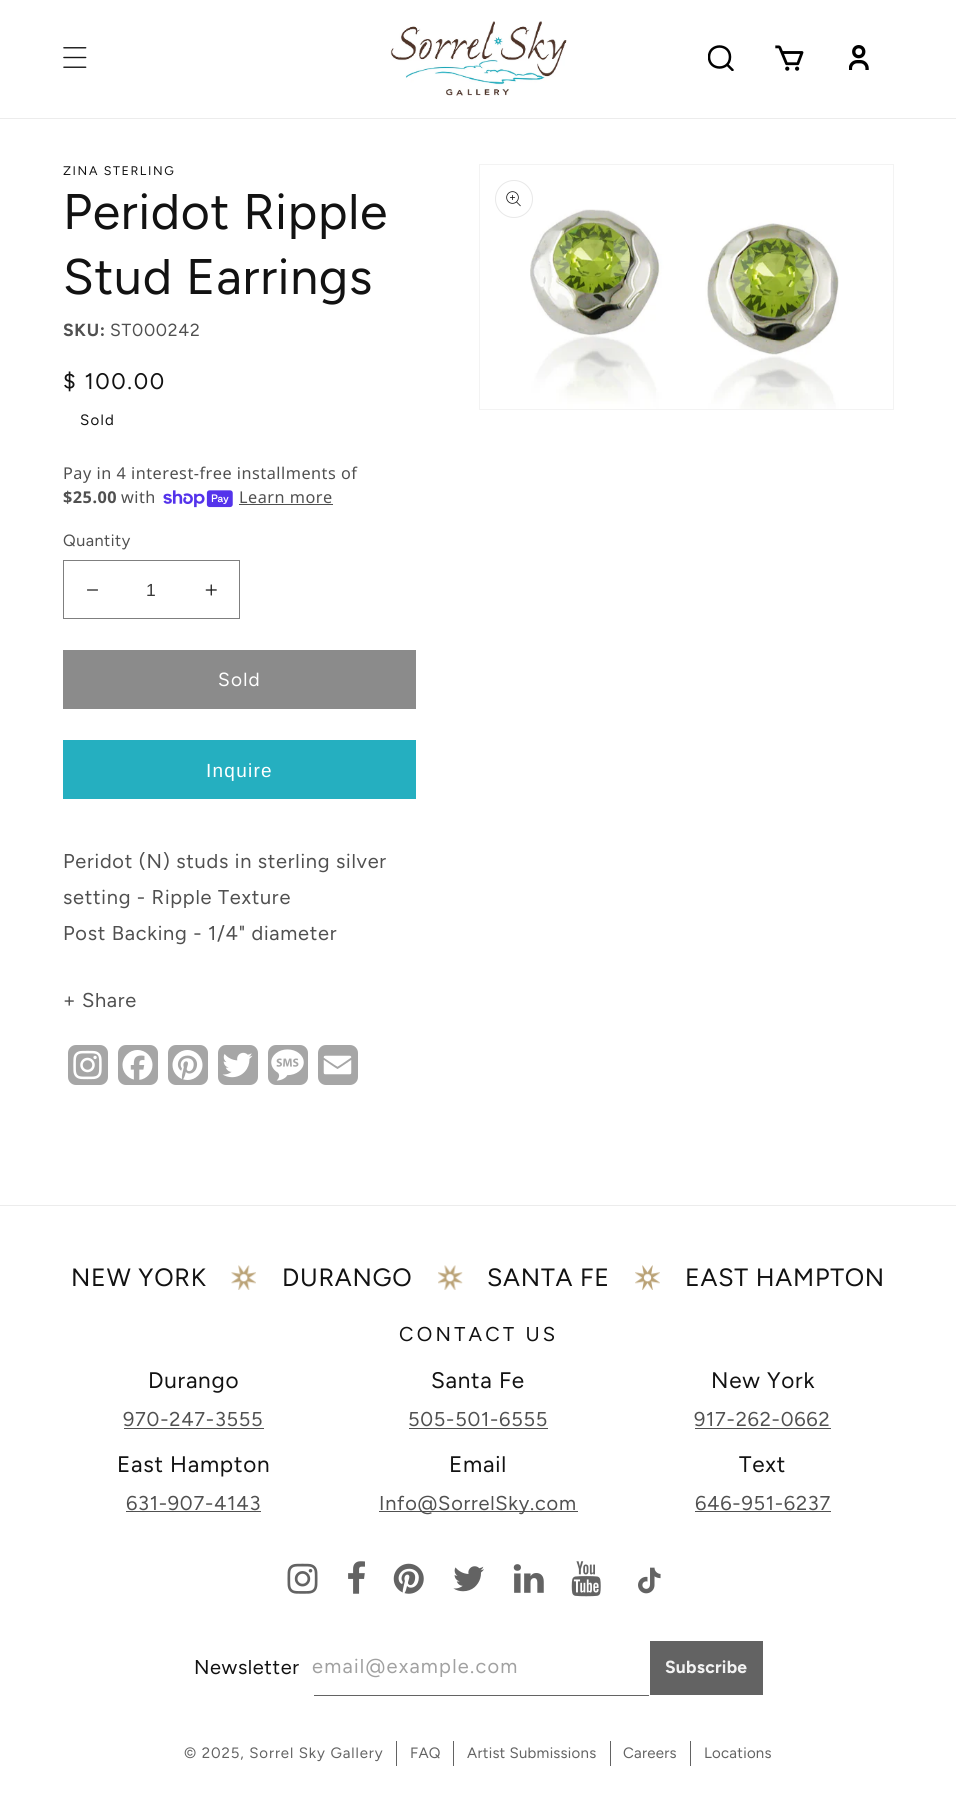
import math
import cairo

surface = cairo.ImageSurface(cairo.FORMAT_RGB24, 956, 1798)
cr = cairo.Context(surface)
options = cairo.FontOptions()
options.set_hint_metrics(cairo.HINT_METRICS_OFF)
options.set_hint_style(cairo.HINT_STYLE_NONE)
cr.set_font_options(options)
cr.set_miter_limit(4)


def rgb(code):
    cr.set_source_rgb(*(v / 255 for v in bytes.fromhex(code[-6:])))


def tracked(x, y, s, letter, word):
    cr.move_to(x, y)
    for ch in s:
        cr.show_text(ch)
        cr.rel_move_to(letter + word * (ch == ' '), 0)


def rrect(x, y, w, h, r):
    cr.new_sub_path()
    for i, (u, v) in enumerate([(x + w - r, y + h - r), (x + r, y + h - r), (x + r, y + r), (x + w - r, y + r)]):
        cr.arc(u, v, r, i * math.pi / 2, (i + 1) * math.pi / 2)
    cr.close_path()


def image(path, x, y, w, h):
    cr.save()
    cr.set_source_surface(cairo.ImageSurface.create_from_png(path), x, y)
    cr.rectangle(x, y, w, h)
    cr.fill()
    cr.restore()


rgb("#ffffff")
cr.paint()
rgb("#ececec")
cr.rectangle(0, 118, 956, 1)
cr.fill()
image("img/1.png", 63, 47, 24, 21)
image("img/2.png", 390, 21, 177, 75)
cr.save()
cr.rectangle(708, 45, 26, 26)
cr.clip()
cr.new_path()
cr.move_to(732.5, 70)
cr.line_to(727, 64.5)
cr.move_to(730, 57)
cr.curve_to(730, 71, 709, 71, 709, 57)
cr.curve_to(709, 43, 730, 43, 730, 57)
cr.close_path()
rgb("#000000")
cr.set_line_width(2.5)
cr.set_line_cap(cairo.LINE_CAP_ROUND)
cr.stroke()
cr.restore()
image("img/3.png", 775, 45, 29, 26)
image("img/4.png", 849, 45, 20, 25)
image("img/5.png", 163, 490, 70, 18)
rgb("#505050")
cr.rectangle(239, 504, 94, 1)
cr.fill()
image("img/6.png", 87, 589, 11, 2)
image("img/7.png", 205, 584, 12, 12)
cr.rectangle(63.5, 560.5, 176, 58)
rgb("#7f7f7f")
cr.set_line_width(1)
cr.stroke()
rgb("#8b8b8b")
cr.rectangle(63, 650, 353, 59)
cr.fill()
rgb("#25afc0")
cr.rectangle(63, 740, 353, 59)
cr.fill()
rgb("#a6a6a6")
rrect(68, 1045, 40, 40, 8)
cr.fill()
image("img/8.png", 73, 1050, 29, 30)
rrect(118, 1045, 40, 40, 8)
cr.fill()
image("img/9.png", 122, 1050, 31, 30)
rrect(168, 1045, 40, 40, 8)
cr.fill()
image("img/10.png", 172, 1050, 31, 30)
rrect(218, 1045, 40, 40, 8)
cr.fill()
image("img/11.png", 222, 1052, 31, 26)
rrect(268, 1045, 40, 40, 8)
cr.fill()
image("img/12.png", 271, 1049, 33, 32)
rrect(318, 1045, 40, 40, 8)
cr.fill()
image("img/13.png", 323, 1055, 29, 20)
cr.rectangle(479.5, 164.5, 414, 245)
rgb("#f3f3f3")
cr.stroke()
image("img/14.png", 530, 209, 309, 200)
cr.arc(514, 199, 18.5, 0, 2 * math.pi)
rgb("#e8e8e8")
cr.stroke()
image("img/15.png", 506, 191, 15, 16)
rgb("#ececec")
cr.rectangle(0, 1205, 956, 1)
cr.fill()
image("img/16.png", 231, 1265, 25, 25)
image("img/17.png", 438, 1265, 25, 25)
image("img/18.png", 635, 1265, 25, 25)
for x, y, w, h, color in [
    (124, 1428, 140, 1, "#505050"),
    (409, 1428, 139, 1, "#505050"),
    (695, 1428, 136, 1, "#505050"),
    (126, 1511, 135, 1, "#505050"),
    (379, 1511, 199, 1, "#505050"),
    (695, 1511, 136, 1, "#505050"),
]:
    rgb(color)
    cr.rectangle(x, y, w, h)
    cr.fill()
image("img/19.png", 287, 1563, 31, 31)
image("img/20.png", 348, 1561, 17, 33)
image("img/21.png", 393, 1563, 31, 31)
image("img/22.png", 453, 1566, 31, 26)
image("img/23.png", 513, 1564, 31, 29)
image("img/24.png", 571, 1561, 30, 36)
image("img/25.png", 638, 1567, 23, 27)
for x, y, w, h, color in [
    (650, 1641, 113, 54, "#636363"),
    (314, 1695, 335, 1, "#636363"),
    (396, 1741, 1, 25, "#636363"),
    (453, 1741, 1, 25, "#636363"),
    (610, 1741, 1, 25, "#636363"),
    (690, 1741, 1, 25, "#636363"),
]:
    rgb(color)
    cr.rectangle(x, y, w, h)
    cr.fill()
cr.select_font_face("Figtree")
cr.set_font_size(12.5)
rgb("#121212")
tracked(63, 175, "ZINA STERLING", 1.6, 0)
cr.set_font_size(50)
tracked(63, 229, "Peridot Ripple", 0.75, 0)
tracked(63, 294, "Stud Earrings", 0.75, 0)
cr.select_font_face("Figtree", cairo.FONT_SLANT_NORMAL, cairo.FONT_WEIGHT_BOLD)
cr.set_font_size(17.5)
rgb("#505050")
tracked(63, 336, "SKU:", 0.75, 0)
cr.select_font_face("Figtree")
tracked(110, 336, "ST000242", 0.75, 0)
cr.set_font_size(22.5)
rgb("#121212")
tracked(63, 389, "$ 100.00", 1.6, 0)
cr.set_font_size(15)
tracked(80, 425, "Sold", 1.25, 0)
cr.select_font_face("Noto Sans")
cr.set_font_size(16.25)
rgb("#505050")
tracked(63, 479, "Pay in 4 interest-free installments of", 0.5, 0)
cr.select_font_face("Noto Sans", cairo.FONT_SLANT_NORMAL, cairo.FONT_WEIGHT_BOLD)
tracked(63, 503, "$25.00", 0.5, 0)
cr.select_font_face("Noto Sans")
tracked(121, 503, "with", 0.5, 0)
tracked(239, 503, "Learn more", 0.5, 0)
cr.select_font_face("Figtree")
tracked(63, 546, "Quantity", 0.5, 0)
cr.select_font_face("Liberation Sans")
cr.set_font_size(17.5)
rgb("#393939")
cr.move_to(146, 596)
cr.show_text("1")
cr.select_font_face("Figtree")
cr.set_font_size(19)
rgb("#ffffff")
tracked(218, 686, "Sold", 1.25, 0)
cr.select_font_face("Liberation Sans")
tracked(206, 777, "Inquire", 1.25, 0)
cr.select_font_face("Figtree")
cr.set_font_size(20)
rgb("#505050")
for x, y, s in [
    (63, 868, "Peridot (N) studs in sterling silver"),
    (63, 904, "setting - Ripple Texture"),
    (63, 940, "Post Backing - 1/4\" diameter"),
    (63, 1007, "+ Share"),
]:
    tracked(x, y, s, 0.75, 0)
cr.set_font_size(25)
rgb("#121212")
for x, y, s in [
    (71, 1286, "NEW YORK"),
    (282, 1286, "DURANGO"),
    (487, 1286, "SANTA FE"),
    (685, 1286, "EAST HAMPTON"),
]:
    tracked(x, y, s, 0.75, 0)
cr.set_font_size(20)
tracked(399, 1341, "CONTACT US", 3.25, 0)
cr.set_font_size(22.5)
tracked(148, 1388, "Durango", 0.75, 0)
cr.set_font_size(20)
rgb("#505050")
tracked(123, 1426, "970-247-3555", 0.75, 0)
cr.set_font_size(22.5)
rgb("#121212")
tracked(431, 1388, "Santa Fe", 0.75, 0)
cr.set_font_size(20)
rgb("#505050")
tracked(408, 1426, "505-501-6555", 0.75, 0)
cr.set_font_size(22.5)
rgb("#121212")
tracked(711, 1388, "New York", 0.75, 0)
cr.set_font_size(20)
rgb("#505050")
tracked(694, 1426, "917-262-0662", 0.75, 0)
cr.set_font_size(22.5)
rgb("#121212")
tracked(117, 1472, "East Hampton", 0.75, 0)
cr.set_font_size(20)
rgb("#505050")
tracked(126, 1510, "631-907-4143", 0.75, 0)
cr.set_font_size(22.5)
rgb("#121212")
tracked(449, 1472, "Email", 0.75, 0)
cr.set_font_size(20)
rgb("#505050")
tracked(379, 1510, "Info@SorrelSky.com", 0.75, 0)
cr.set_font_size(22.5)
rgb("#121212")
tracked(739, 1472, "Text", 0.75, 0)
cr.set_font_size(20)
rgb("#505050")
tracked(695, 1510, "646-951-6237", 0.75, 0)
rgb("#121212")
tracked(194, 1674, "Newsletter", 0.6, 0)
rgb("#a1a1a1")
tracked(312, 1673, "email@example.com", 1.25, 0)
cr.select_font_face("Figtree", cairo.FONT_SLANT_NORMAL, cairo.FONT_WEIGHT_BOLD)
cr.set_font_size(17.5)
rgb("#f2f2f2")
tracked(665, 1673, "Subscribe", 0.25, 0)
cr.select_font_face("Figtree")
cr.set_font_size(15)
rgb("#636363")
tracked(184, 1758, "© 2025, Sorrel Sky Gallery", 0.9, 0)
for x, y, s in [
    (410, 1758, "FAQ"),
    (467, 1758, "Artist Submissions"),
    (623, 1758, "Careers"),
    (704, 1758, "Locations"),
]:
    tracked(x, y, s, 0.25, 0)
surface.write_to_png("page.png")
